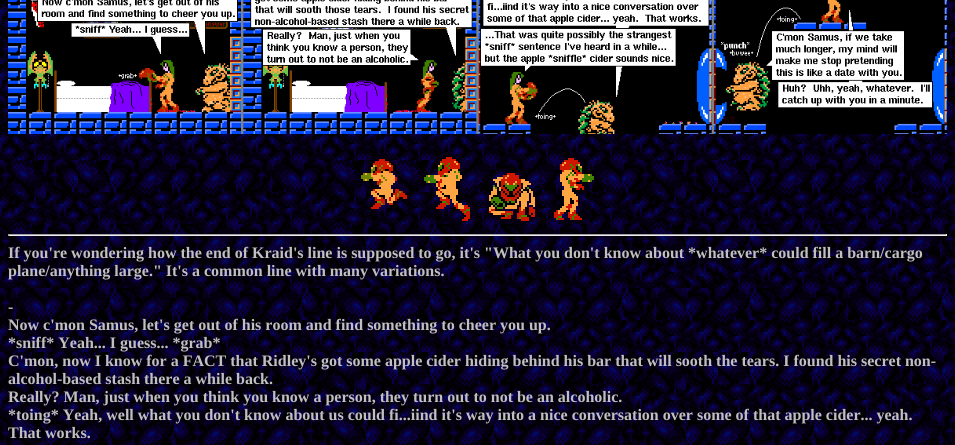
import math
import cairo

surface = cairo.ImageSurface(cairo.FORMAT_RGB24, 955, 445)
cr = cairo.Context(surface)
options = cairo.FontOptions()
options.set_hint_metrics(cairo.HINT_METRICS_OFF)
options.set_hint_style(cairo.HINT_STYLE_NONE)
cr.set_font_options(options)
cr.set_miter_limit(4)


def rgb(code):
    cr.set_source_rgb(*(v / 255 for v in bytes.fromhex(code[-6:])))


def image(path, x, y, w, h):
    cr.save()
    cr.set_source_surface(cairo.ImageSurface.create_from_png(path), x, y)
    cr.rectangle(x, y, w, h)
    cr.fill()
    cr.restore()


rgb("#ffffff")
cr.paint()
image("img/1.png", 0, 0, 955, 445)
image("img/2.png", 8, 0, 939, 134)
image("img/3.png", 361, 159, 46, 50)
image("img/4.png", 424, 157, 46, 64)
image("img/5.png", 489, 173, 46, 48)
image("img/6.png", 554, 158, 40, 62)
for x, y, w, h, color in [
    (8, 234, 939, 1, "#9f9f9f"),
    (946, 234, 1, 2, "#eeeeee"),
    (8, 235, 939, 1, "#eeeeee"),
    (8, 234, 1, 2, "#9f9f9f"),
]:
    rgb(color)
    cr.rectangle(x, y, w, h)
    cr.fill()
cr.select_font_face("Liberation Serif", cairo.FONT_SLANT_NORMAL, cairo.FONT_WEIGHT_BOLD)
cr.set_font_size(16)
rgb("#c0c0c0")
for x, y, s in [
    (8, 258, "If you're wondering how the end of Kraid's line is supposed to go, it's \"What you don't know about *whatever* could fill a barn/cargo"),
    (8, 276, "plane/anything large.\" It's a common line with many variations."),
    (8, 312, "-"),
    (8, 330, "Now c'mon Samus, let's get out of his room and find something to cheer you up."),
    (8, 348, "*sniff* Yeah... I guess... *grab*"),
    (8, 366, "C'mon, now I know for a FACT that Ridley's got some apple cider hiding behind his bar that will sooth the tears. I found his secret non-"),
    (8, 384, "alcohol-based stash there a while back."),
    (8, 402, "Really? Man, just when you think you know a person, they turn out to not be an alcoholic."),
    (8, 420, "*toing* Yeah, well what you don't know about us could fi...iind it's way into a nice conversation over some of that apple cider... yeah."),
    (8, 438, "That works."),
]:
    cr.move_to(x, y)
    cr.show_text(s)
surface.write_to_png("page.png")
